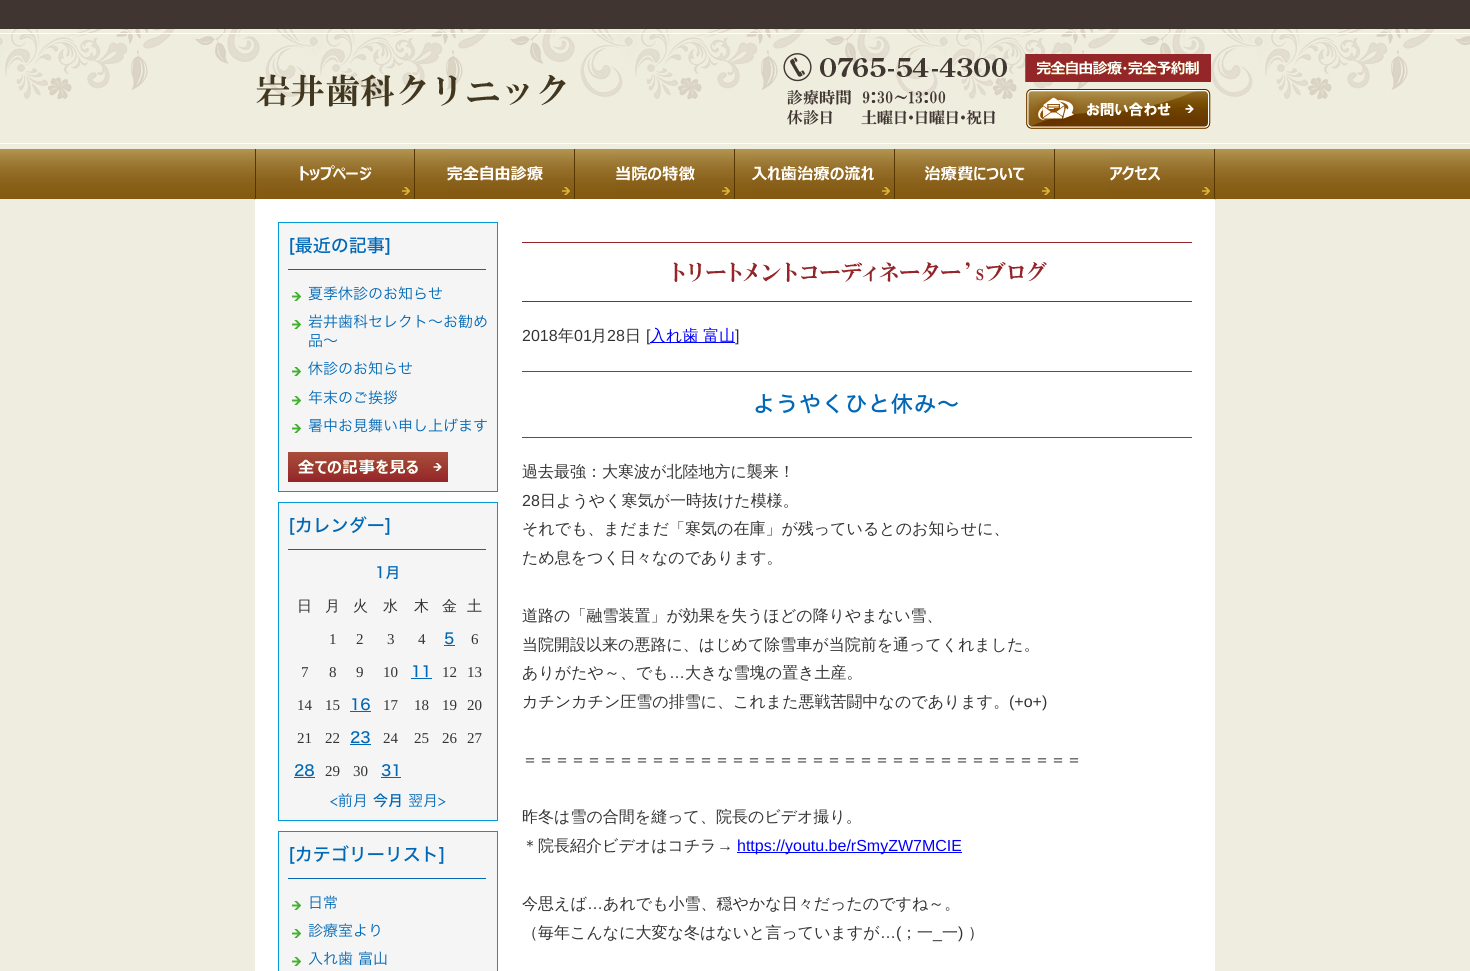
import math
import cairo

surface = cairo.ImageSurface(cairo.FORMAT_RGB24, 1470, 971)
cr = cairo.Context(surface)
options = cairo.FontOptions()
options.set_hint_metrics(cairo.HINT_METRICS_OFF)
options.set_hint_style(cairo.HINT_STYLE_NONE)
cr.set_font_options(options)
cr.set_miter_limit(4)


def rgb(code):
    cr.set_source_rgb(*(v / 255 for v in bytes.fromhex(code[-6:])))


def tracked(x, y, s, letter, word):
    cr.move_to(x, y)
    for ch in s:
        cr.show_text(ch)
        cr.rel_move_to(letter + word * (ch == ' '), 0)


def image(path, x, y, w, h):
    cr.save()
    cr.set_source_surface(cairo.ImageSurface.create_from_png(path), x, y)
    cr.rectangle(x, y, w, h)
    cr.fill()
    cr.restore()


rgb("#efede0")
cr.paint()
rgb("#403531")
cr.rectangle(0, 0, 1470, 29)
cr.fill()
image("img/1.png", 0, 29, 1470, 115)
image("img/2.png", 256, 53, 751, 72)
image("img/3.png", 1025, 54, 186, 75)
image("img/4.png", 0, 149, 1470, 50)
image("img/5.png", 255, 149, 160, 50)
image("img/6.png", 447, 149, 128, 50)
image("img/7.png", 616, 149, 119, 50)
image("img/8.png", 752, 149, 143, 50)
image("img/9.png", 920, 149, 135, 50)
image("img/10.png", 1109, 149, 106, 50)
rgb("#a1cbed")
cr.rectangle(254, 199, 962, 1)
cr.fill()
rgb("#ffffff")
cr.rectangle(255, 199, 960, 772)
cr.fill()
rgb("#f5f5f5")
cr.rectangle(278.5, 222.5, 219, 269)
cr.fill_preserve()
rgb("#0099d9")
cr.set_line_width(1)
cr.stroke()
rgb("#0068b6")
cr.rectangle(288, 269, 198, 1)
cr.fill()
image("img/11.png", 292, 292, 9, 9)
image("img/11.png", 292, 320, 9, 9)
image("img/11.png", 292, 367, 9, 9)
image("img/11.png", 292, 396, 9, 9)
image("img/11.png", 292, 424, 9, 9)
image("img/12.png", 288, 452, 160, 30)
rgb("#f5f5f5")
cr.rectangle(278.5, 502.5, 219, 318)
cr.fill_preserve()
rgb("#0099d9")
cr.stroke()
for x, y, w, h, color in [
    (288, 549, 198, 1, "#0068b6"),
    (444, 645, 11, 1, "#0068b6"),
    (411, 678, 21, 1, "#0068b6"),
    (350, 711, 21, 1, "#0068b6"),
    (350, 744, 21, 1, "#0068b6"),
    (294, 777, 21, 1, "#0068b6"),
    (381, 777, 20, 1, "#0068b6"),
]:
    rgb(color)
    cr.rectangle(x, y, w, h)
    cr.fill()
rgb("#f5f5f5")
cr.rectangle(278.5, 831.5, 219, 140)
cr.fill_preserve()
rgb("#0099d9")
cr.stroke()
rgb("#0068b6")
cr.rectangle(288, 878, 198, 1)
cr.fill()
image("img/11.png", 292, 901, 9, 9)
image("img/11.png", 292, 929, 9, 9)
image("img/11.png", 292, 957, 9, 9)
image("img/13.png", 522, 242, 670, 60)
for x, y, w, h, color in [
    (650, 342, 85, 1, "#0000ff"),
    (522, 371, 670, 1, "#0068b6"),
    (522, 437, 670, 1, "#0068b6"),
    (737, 852, 225, 1, "#0000ff"),
]:
    rgb(color)
    cr.rectangle(x, y, w, h)
    cr.fill()
cr.select_font_face("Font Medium")
cr.set_font_size(18)
rgb("#0068b6")
cr.move_to(288, 252)
cr.show_text("[最近の記事]")
cr.select_font_face("Font Light")
cr.set_font_size(15)
for x, y, s in [
    (308, 299, "夏季休診のお知らせ"),
    (308, 327, "岩井歯科セレクト～お勧め"),
    (308, 346, "品～"),
    (308, 374, "休診のお知らせ"),
    (308, 403, "年末のご挨拶"),
    (308, 431, "暑中お見舞い申し上げます"),
]:
    cr.move_to(x, y)
    cr.show_text(s)
cr.select_font_face("Font Medium")
cr.set_font_size(18)
cr.move_to(288, 532)
cr.show_text("[カレンダー]")
cr.set_font_size(15)
cr.move_to(375, 578)
cr.show_text("1月")
cr.select_font_face("WenQuanYi Zen Hei Medium")
rgb("#333333")
for x, y, s in [
    (297, 611, "日"),
    (325, 611, "月"),
    (353, 611, "火"),
    (383, 611, "水"),
    (414, 611, "木"),
    (442, 611, "金"),
    (467, 611, "土"),
]:
    cr.move_to(x, y)
    cr.show_text(s)
cr.select_font_face("Liberation Serif")
for x, y, s in [
    (329, 644, "1"),
    (356, 644, "2"),
    (387, 644, "3"),
    (418, 644, "4"),
]:
    cr.move_to(x, y)
    cr.show_text(s)
cr.select_font_face("Font Medium")
rgb("#0068b6")
cr.move_to(444, 644)
cr.show_text("5")
cr.select_font_face("Liberation Serif")
rgb("#333333")
for x, y, s in [
    (471, 644, "6"),
    (301, 677, "7"),
    (329, 677, "8"),
    (356, 677, "9"),
    (383, 677, "10"),
]:
    cr.move_to(x, y)
    cr.show_text(s)
cr.select_font_face("Font Medium")
rgb("#0068b6")
cr.move_to(411, 677)
cr.show_text("11")
cr.select_font_face("Liberation Serif")
rgb("#333333")
for x, y, s in [
    (442, 677, "12"),
    (467, 677, "13"),
    (297, 710, "14"),
    (325, 710, "15"),
]:
    cr.move_to(x, y)
    cr.show_text(s)
cr.select_font_face("Font Medium")
rgb("#0068b6")
cr.move_to(350, 710)
cr.show_text("16")
cr.select_font_face("Liberation Serif")
rgb("#333333")
for x, y, s in [
    (383, 710, "17"),
    (414, 710, "18"),
    (442, 710, "19"),
    (467, 710, "20"),
    (297, 743, "21"),
    (325, 743, "22"),
]:
    cr.move_to(x, y)
    cr.show_text(s)
cr.select_font_face("Font Medium")
rgb("#0068b6")
cr.move_to(350, 743)
cr.show_text("23")
cr.select_font_face("Liberation Serif")
rgb("#333333")
for x, y, s in [
    (383, 743, "24"),
    (414, 743, "25"),
    (442, 743, "26"),
    (467, 743, "27"),
]:
    cr.move_to(x, y)
    cr.show_text(s)
cr.select_font_face("Font Medium")
rgb("#0068b6")
cr.move_to(294, 776)
cr.show_text("28")
cr.select_font_face("Liberation Serif")
rgb("#333333")
cr.move_to(325, 776)
cr.show_text("29")
cr.move_to(353, 776)
cr.show_text("30")
cr.select_font_face("Font Medium")
rgb("#0068b6")
cr.move_to(381, 776)
cr.show_text("31")
cr.select_font_face("Font Light")
cr.move_to(330, 806)
cr.show_text("<前月")
cr.select_font_face("Font Medium")
cr.move_to(373, 806)
cr.show_text("今月")
cr.select_font_face("Font Light")
cr.move_to(408, 806)
cr.show_text("翌月>")
cr.select_font_face("Font Medium")
cr.set_font_size(18)
cr.move_to(288, 861)
cr.show_text("[カテゴリーリスト]")
cr.select_font_face("Font Light")
cr.set_font_size(15)
for x, y, s in [
    (308, 908, "日常"),
    (308, 936, "診療室より"),
    (308, 964, "入れ歯 富山"),
]:
    cr.move_to(x, y)
    cr.show_text(s)
cr.select_font_face("Liberation Sans")
cr.set_font_size(16)
rgb("#333333")
cr.move_to(522, 341)
cr.show_text("2018")
cr.select_font_face("WenQuanYi Zen Hei Medium")
cr.move_to(558, 341)
cr.show_text("年")
cr.select_font_face("Liberation Sans")
cr.move_to(574, 341)
cr.show_text("01")
cr.select_font_face("WenQuanYi Zen Hei Medium")
cr.move_to(591, 341)
cr.show_text("月")
cr.select_font_face("Liberation Sans")
cr.move_to(607, 341)
cr.show_text("28")
cr.select_font_face("WenQuanYi Zen Hei Medium")
cr.move_to(625, 341)
cr.show_text("日")
cr.select_font_face("Liberation Sans")
cr.move_to(646, 341)
cr.show_text("[")
cr.select_font_face("WenQuanYi Zen Hei Medium")
rgb("#0000ff")
cr.move_to(650, 341)
cr.show_text("入れ歯 富山")
cr.select_font_face("Liberation Sans")
rgb("#333333")
cr.move_to(735, 341)
cr.show_text("]")
cr.select_font_face("Font Medium")
cr.set_font_size(22)
rgb("#0068b6")
tracked(753, 412, "ようやくひと休み～", 1, 0)
cr.select_font_face("WenQuanYi Zen Hei Medium")
cr.set_font_size(16)
rgb("#333333")
cr.move_to(522, 477)
cr.show_text("過去最強：大寒波が北陸地方に襲来！")
cr.select_font_face("Liberation Sans")
cr.move_to(522, 506)
cr.show_text("28")
cr.select_font_face("WenQuanYi Zen Hei Medium")
for x, y, s in [
    (540, 506, "日ようやく寒気が一時抜けた模様。"),
    (522, 534, "それでも、まだまだ「寒気の在庫」が残っているとのお知らせに、"),
    (522, 563, "ため息をつく日々なのであります。"),
    (522, 621, "道路の「融雪装置」が効果を失うほどの降りやまない雪、"),
    (522, 650, "当院開設以来の悪路に、はじめて除雪車が当院前を通ってくれました。"),
    (522, 678, "ありがたや～、でも"),
]:
    cr.move_to(x, y)
    cr.show_text(s)
cr.select_font_face("Liberation Sans")
cr.move_to(669, 678)
cr.show_text("…")
cr.select_font_face("WenQuanYi Zen Hei Medium")
cr.move_to(685, 678)
cr.show_text("大きな雪塊の置き土産。")
cr.move_to(522, 707)
cr.show_text("カチンカチン圧雪の排雪に、これまた悪戦苦闘中なのであります。")
cr.select_font_face("Liberation Sans")
cr.move_to(1009, 707)
cr.show_text("(+o+)")
cr.select_font_face("WenQuanYi Zen Hei Medium")
for x, y, s in [
    (522, 765, "＝＝＝＝＝＝＝＝＝＝＝＝＝＝＝＝＝＝＝＝＝＝＝＝＝＝＝＝＝＝＝＝＝＝＝"),
    (522, 822, "昨冬は雪の合間を縫って、院長のビデオ撮り。"),
    (522, 851, "＊院長紹介ビデオはコチラ"),
]:
    cr.move_to(x, y)
    cr.show_text(s)
cr.select_font_face("Liberation Sans")
cr.move_to(717, 851)
cr.show_text("→")
rgb("#0000ff")
cr.move_to(737, 851)
cr.show_text("https://youtu.be/rSmyZW7MCIE")
cr.select_font_face("WenQuanYi Zen Hei Medium")
rgb("#333333")
cr.move_to(522, 909)
cr.show_text("今思えば")
cr.select_font_face("Liberation Sans")
cr.move_to(587, 909)
cr.show_text("…")
cr.select_font_face("WenQuanYi Zen Hei Medium")
cr.move_to(603, 909)
cr.show_text("あれでも小雪、穏やかな日々だったのですね～。")
cr.move_to(522, 938)
cr.show_text("（毎年こんなに大変な冬はないと言っていますが")
cr.select_font_face("Liberation Sans")
cr.move_to(880, 938)
cr.show_text("…(")
cr.select_font_face("WenQuanYi Zen Hei Medium")
cr.move_to(901, 938)
cr.show_text("；一")
cr.move_to(942, 938)
cr.show_text("一")
cr.select_font_face("Liberation Sans")
cr.move_to(958, 938)
cr.show_text(")")
cr.select_font_face("WenQuanYi Zen Hei Medium")
cr.move_to(968, 938)
cr.show_text("）")
cr.select_font_face("Liberation Sans")
cr.move_to(933, 938)
cr.show_text("_")
surface.write_to_png("page.png")
